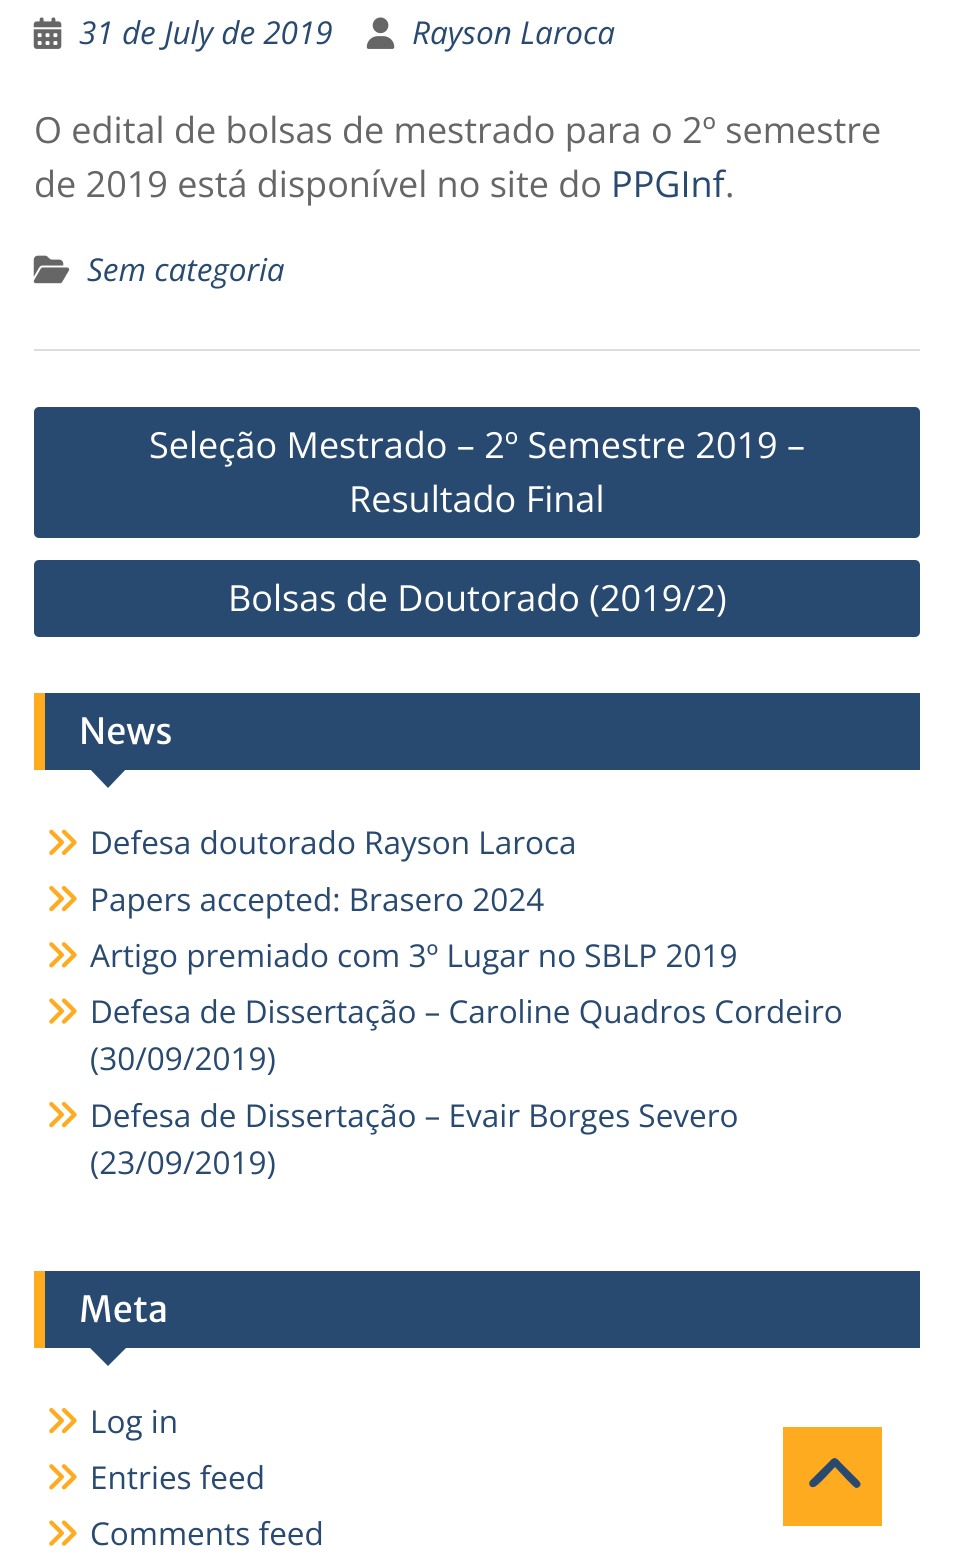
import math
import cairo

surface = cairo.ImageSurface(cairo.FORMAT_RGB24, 954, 1559)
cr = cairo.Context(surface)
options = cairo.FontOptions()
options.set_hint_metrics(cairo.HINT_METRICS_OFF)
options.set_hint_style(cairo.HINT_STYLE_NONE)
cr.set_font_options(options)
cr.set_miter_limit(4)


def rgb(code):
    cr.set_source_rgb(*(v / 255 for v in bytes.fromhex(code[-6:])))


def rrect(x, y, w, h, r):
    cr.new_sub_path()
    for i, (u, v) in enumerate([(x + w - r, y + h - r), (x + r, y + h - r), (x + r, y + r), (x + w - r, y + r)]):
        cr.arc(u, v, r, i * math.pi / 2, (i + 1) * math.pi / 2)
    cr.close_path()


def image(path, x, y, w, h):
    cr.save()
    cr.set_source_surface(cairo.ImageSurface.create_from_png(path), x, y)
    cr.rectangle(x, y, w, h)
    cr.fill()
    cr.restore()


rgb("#ffffff")
cr.paint()
rgb("#dddddd")
cr.rectangle(34, 349, 886, 2)
cr.fill()
image("img/1.png", 33, 17, 29, 32)
image("img/2.png", 366, 17, 29, 32)
image("img/3.png", 33, 255, 37, 29)
rgb("#294a70")
rrect(34, 407, 886, 131, 5)
cr.fill()
rrect(34, 560, 886, 77, 5)
cr.fill()
cr.rectangle(45, 693, 875, 77)
cr.fill()
rgb("#ffab1f")
cr.rectangle(34, 693, 11, 77)
cr.fill()
rgb("#294a70")
cr.new_path()
cr.move_to(88, 767)
cr.line_to(128, 767)
cr.line_to(108, 788)
cr.close_path()
cr.fill()
image("img/4.png", 49, 829, 28, 26)
image("img/5.png", 49, 885, 28, 27)
image("img/6.png", 49, 942, 28, 26)
image("img/7.png", 49, 998, 28, 26)
image("img/5.png", 49, 1101, 28, 27)
cr.rectangle(45, 1271, 875, 77)
cr.fill()
rgb("#ffab1f")
cr.rectangle(34, 1271, 11, 77)
cr.fill()
rgb("#294a70")
cr.new_path()
cr.move_to(88, 1346)
cr.line_to(128, 1346)
cr.line_to(108, 1366)
cr.close_path()
cr.fill()
image("img/5.png", 49, 1407, 28, 27)
image("img/6.png", 49, 1464, 28, 26)
image("img/7.png", 49, 1520, 28, 26)
rgb("#ffab1f")
cr.rectangle(783, 1427, 99, 99)
cr.fill()
rgb("#294a70")
cr.new_path()
cr.move_to(832, 1459)
cr.curve_to(836, 1456, 839, 1461, 841, 1463)
cr.line_to(856, 1478)
cr.curve_to(858, 1480, 862, 1483, 860, 1486)
cr.curve_to(859, 1487, 858, 1488, 856, 1488)
cr.curve_to(853, 1487, 838, 1470, 835, 1467)
cr.curve_to(832, 1470, 817, 1487, 814, 1487)
cr.curve_to(810, 1488, 808, 1484, 810, 1481)
cr.close_path()
cr.fill()
cr.select_font_face("Open Sans", cairo.FONT_SLANT_ITALIC)
cr.set_font_size(31.5)
cr.move_to(79, 44)
cr.show_text("31 de July de 2019")
cr.move_to(412, 44)
cr.show_text("Rayson Laroca")
cr.select_font_face("Open Sans")
cr.set_font_size(36)
rgb("#666666")
cr.move_to(34, 143)
cr.show_text("O edital de bolsas de mestrado para o 2º semestre")
cr.move_to(34, 197)
cr.show_text("de 2019 está disponível no site do")
rgb("#294a70")
cr.move_to(611, 197)
cr.show_text("PPGInf")
rgb("#666666")
cr.move_to(725, 197)
cr.show_text(".")
cr.select_font_face("Open Sans", cairo.FONT_SLANT_ITALIC)
cr.set_font_size(31.5)
rgb("#294a70")
cr.move_to(87, 281)
cr.show_text("Sem categoria")
cr.select_font_face("Open Sans")
cr.set_font_size(36)
rgb("#ffffff")
for x, y, s in [
    (149, 458, "Seleção Mestrado – 2º Semestre 2019 –"),
    (349, 512, "Resultado Final"),
    (228, 611, "Bolsas de Doutorado (2019/2)"),
]:
    cr.move_to(x, y)
    cr.show_text(s)
cr.select_font_face("Merriweather Sans")
cr.move_to(79, 744)
cr.show_text("News")
cr.select_font_face("Open Sans")
cr.set_font_size(31.5)
rgb("#294a70")
for x, y, s in [
    (90, 854, "Defesa doutorado Rayson Laroca"),
    (90, 911, "Papers accepted: Brasero 2024"),
    (90, 967, "Artigo premiado com 3º Lugar no SBLP 2019"),
    (90, 1023, "Defesa de Dissertação – Caroline Quadros Cordeiro"),
    (90, 1070, "(30/09/2019)"),
    (90, 1127, "Defesa de Dissertação – Evair Borges Severo"),
    (90, 1174, "(23/09/2019)"),
]:
    cr.move_to(x, y)
    cr.show_text(s)
cr.select_font_face("Merriweather Sans")
cr.set_font_size(36)
rgb("#ffffff")
cr.move_to(79, 1322)
cr.show_text("Meta")
cr.select_font_face("Open Sans")
cr.set_font_size(31.5)
rgb("#294a70")
for x, y, s in [
    (90, 1433, "Log in"),
    (90, 1489, "Entries feed"),
    (90, 1545, "Comments feed"),
]:
    cr.move_to(x, y)
    cr.show_text(s)
surface.write_to_png("page.png")
